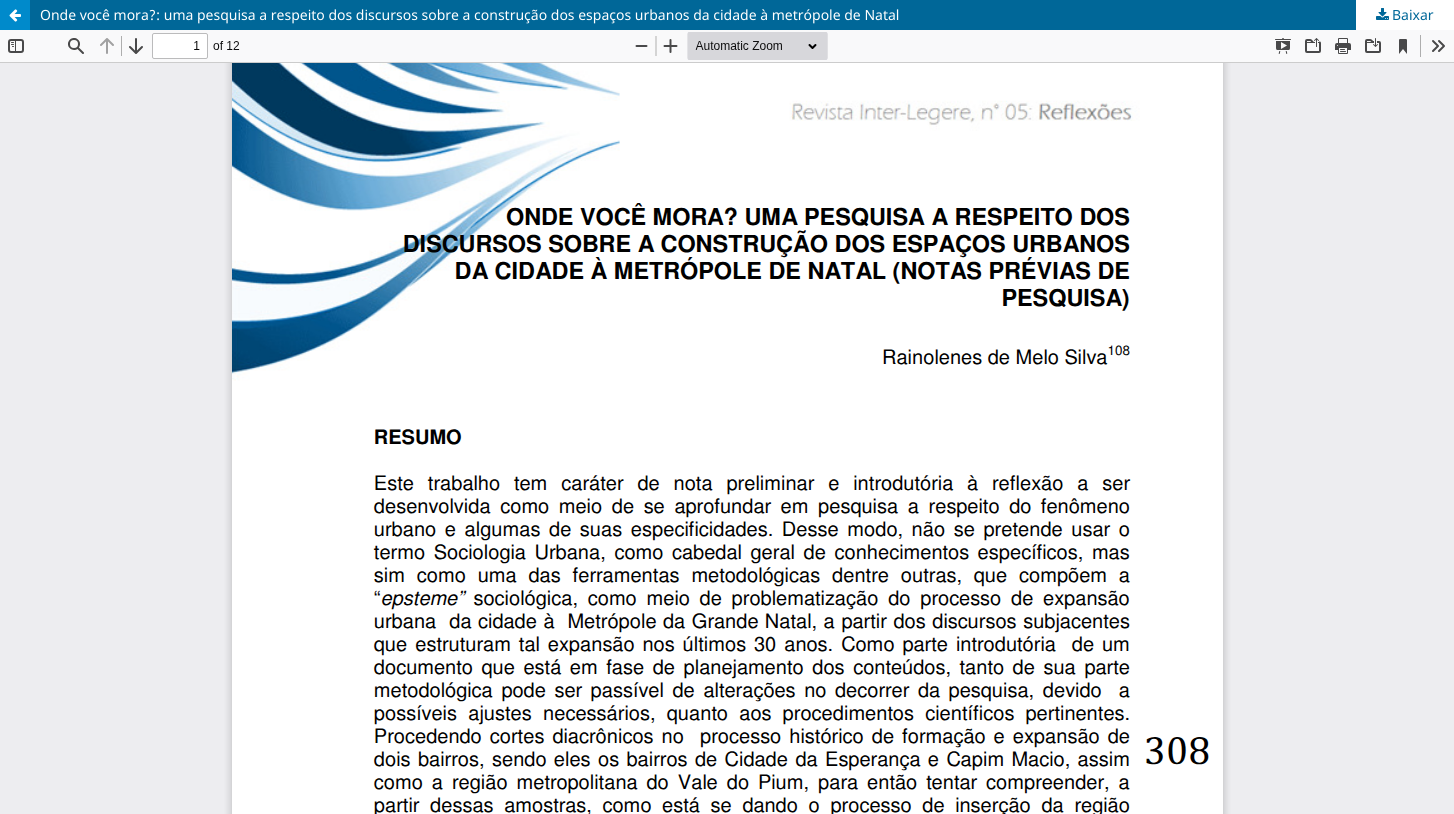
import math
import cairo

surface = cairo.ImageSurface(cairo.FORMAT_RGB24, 1454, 814)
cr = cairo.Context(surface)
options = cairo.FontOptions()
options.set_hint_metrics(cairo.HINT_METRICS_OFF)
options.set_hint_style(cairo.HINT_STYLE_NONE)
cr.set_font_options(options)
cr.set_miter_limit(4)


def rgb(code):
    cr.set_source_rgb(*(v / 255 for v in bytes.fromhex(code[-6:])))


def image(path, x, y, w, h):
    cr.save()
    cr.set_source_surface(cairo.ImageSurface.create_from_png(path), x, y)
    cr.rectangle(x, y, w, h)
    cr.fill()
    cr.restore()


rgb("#ffffff")
cr.paint()
rgb("#006798")
cr.rectangle(30, 0, 1326, 30)
cr.fill()
rgb("#008acb")
cr.rectangle(0, 0, 30, 30)
cr.fill()
image("img/1.png", 9, 9, 12, 13)
image("img/2.png", 1376, 8, 13, 12)
image("img/3.png", 0, 30, 1454, 784)
cr.select_font_face("Noto Sans")
cr.set_font_size(14)
rgb("#ffffff")
cr.move_to(40, 20)
cr.show_text("Onde você mora?: uma pesquisa a respeito dos discursos sobre a construção dos espaços urbanos da cidade à metrópole de Natal")
rgb("#006798")
cr.move_to(1392, 20)
cr.show_text("Baixar")
surface.write_to_png("page.png")
